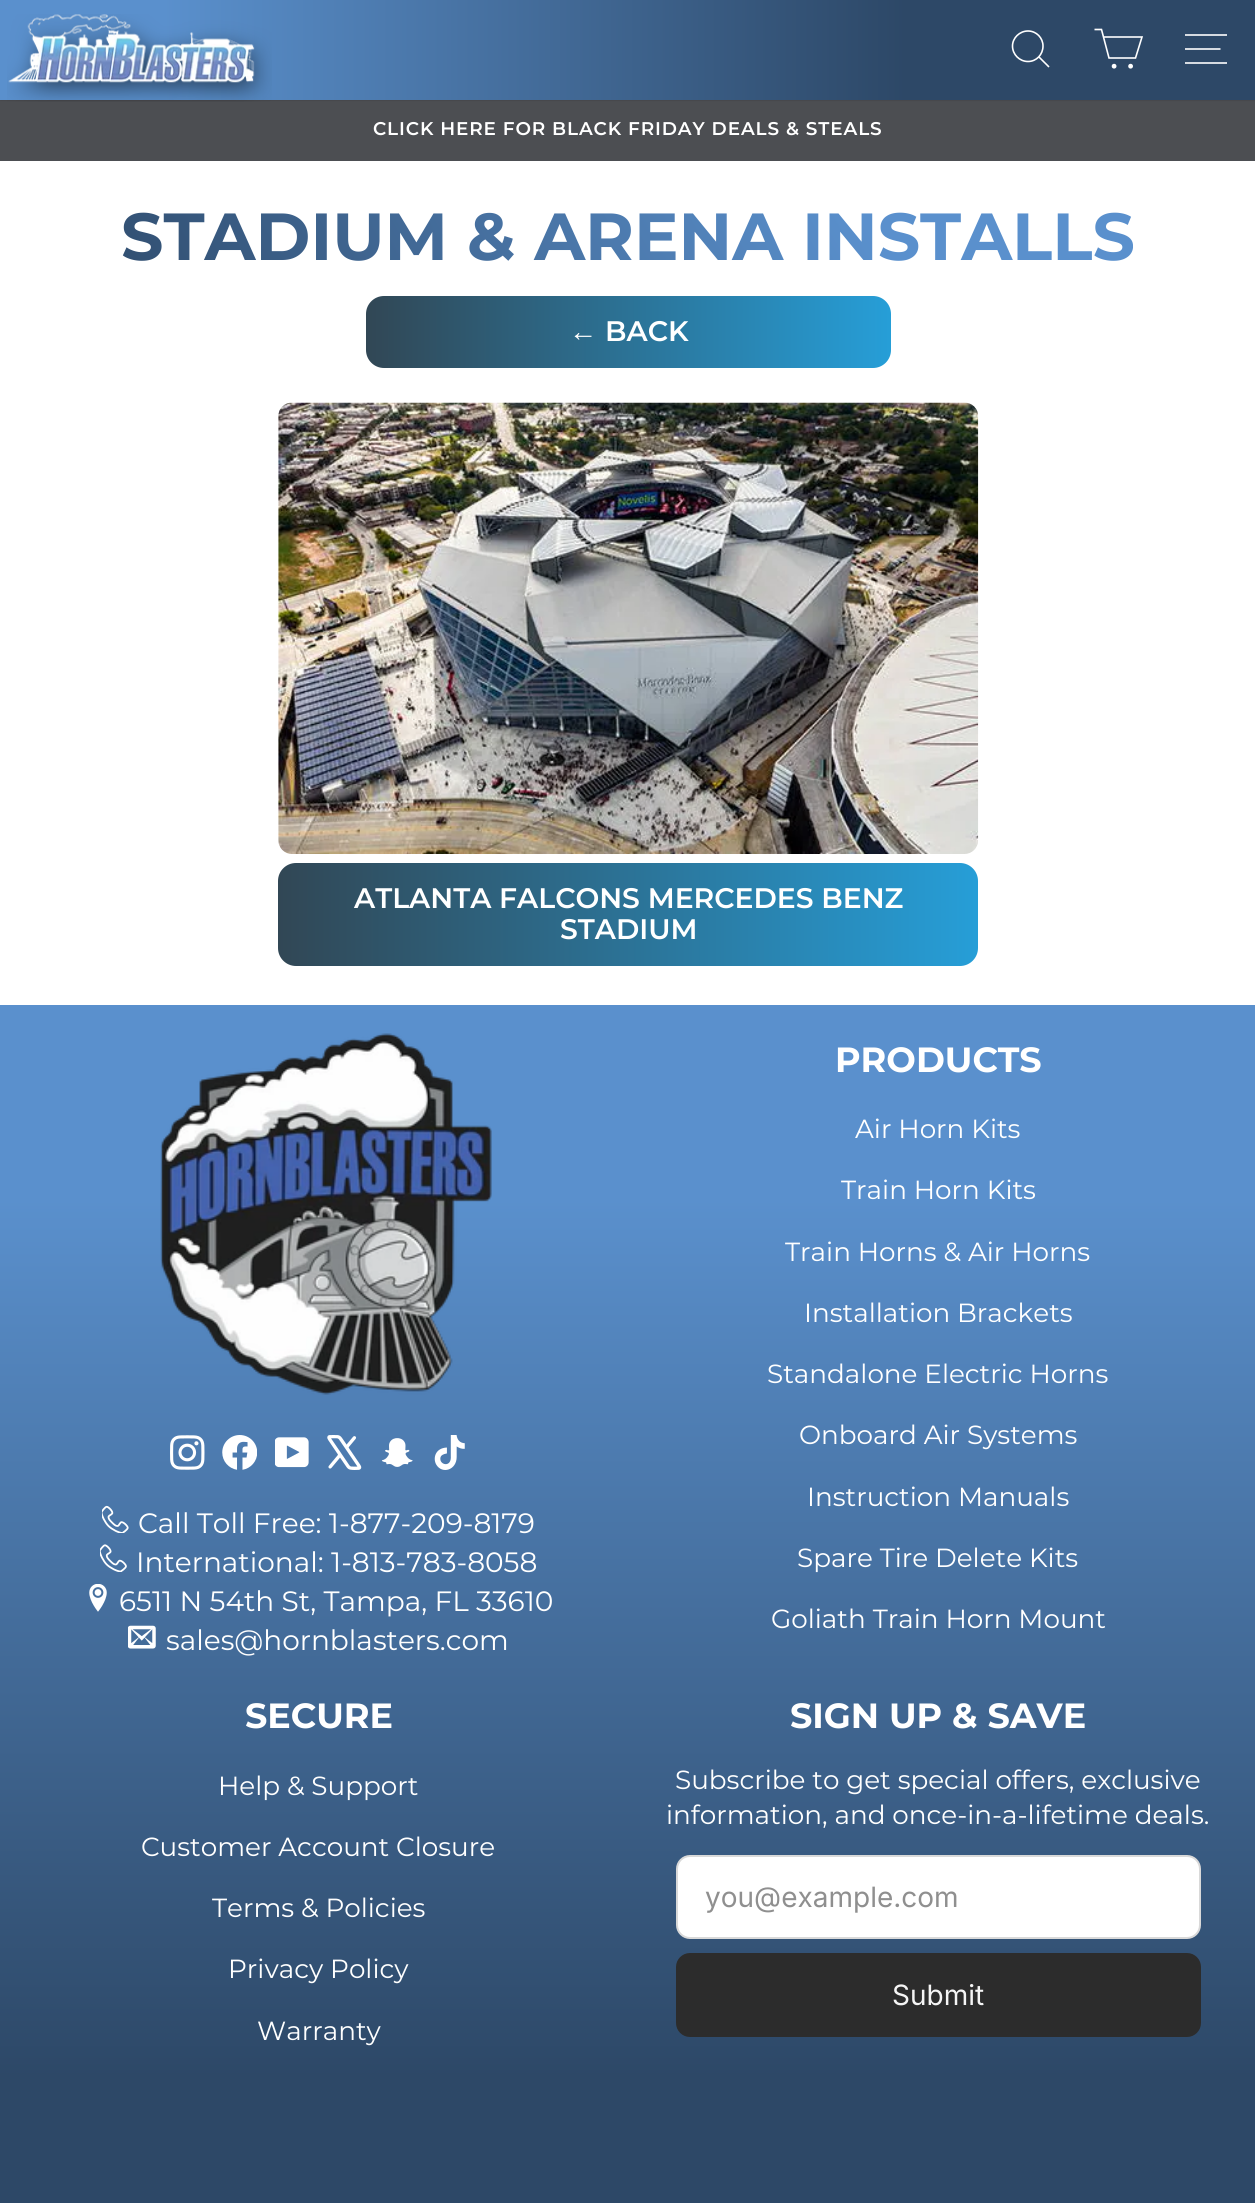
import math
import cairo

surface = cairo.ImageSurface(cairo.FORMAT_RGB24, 1255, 2203)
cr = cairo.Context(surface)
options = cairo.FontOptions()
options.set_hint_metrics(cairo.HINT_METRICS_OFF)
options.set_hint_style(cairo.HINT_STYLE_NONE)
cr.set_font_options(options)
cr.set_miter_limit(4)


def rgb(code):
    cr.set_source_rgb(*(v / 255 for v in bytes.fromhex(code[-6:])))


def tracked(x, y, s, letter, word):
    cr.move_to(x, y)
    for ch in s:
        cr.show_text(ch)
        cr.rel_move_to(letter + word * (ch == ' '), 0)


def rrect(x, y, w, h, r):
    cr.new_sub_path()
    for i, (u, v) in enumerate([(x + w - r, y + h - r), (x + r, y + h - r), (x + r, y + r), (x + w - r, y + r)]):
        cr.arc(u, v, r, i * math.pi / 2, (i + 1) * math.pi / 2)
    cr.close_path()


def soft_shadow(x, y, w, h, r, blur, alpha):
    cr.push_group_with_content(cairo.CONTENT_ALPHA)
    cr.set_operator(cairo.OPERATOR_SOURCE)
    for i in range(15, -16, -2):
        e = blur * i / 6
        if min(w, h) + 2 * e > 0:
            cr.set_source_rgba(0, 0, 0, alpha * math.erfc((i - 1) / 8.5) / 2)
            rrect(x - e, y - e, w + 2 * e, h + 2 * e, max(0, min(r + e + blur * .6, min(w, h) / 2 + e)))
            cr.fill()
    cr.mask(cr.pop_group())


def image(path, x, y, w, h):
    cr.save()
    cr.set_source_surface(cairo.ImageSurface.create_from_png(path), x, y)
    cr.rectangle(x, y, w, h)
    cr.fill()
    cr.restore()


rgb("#ffffff")
cr.paint()
rgb("#4c4e52")
cr.rectangle(0, 100, 1255, 61)
cr.fill()
rgb("#000000")
soft_shadow(0, 0, 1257, 100, 0, 1, 0.2)
gradient = cairo.LinearGradient(0, 50, 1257, 50)
gradient.add_color_stop_rgba(0.13, 0.353, 0.565, 0.804, 1)
gradient.add_color_stop_rgba(0.72, 0.176, 0.282, 0.404, 1)
cr.set_source(gradient)
cr.rectangle(0, 0, 1255, 100)
cr.fill()
image("img/1.png", 7, 14, 265, 88)
cr.new_path()
cr.move_to(1043, 46)
cr.curve_to(1043, 54.5, 1036.5, 61.5, 1028, 61.5)
cr.curve_to(1019.5, 61.5, 1012.5, 54.5, 1012.5, 46)
cr.curve_to(1012.5, 38, 1019.5, 31, 1028, 31)
cr.curve_to(1036.5, 31, 1043, 38, 1043, 46)
cr.close_path()
cr.move_to(1049, 67)
cr.line_to(1039, 57)
rgb("#ffffff")
cr.set_line_width(1.6)
cr.stroke()
cr.new_path()
cr.move_to(1103.5, 37)
cr.line_to(1142, 37)
cr.line_to(1135.5, 58)
cr.line_to(1109, 58)
cr.line_to(1101.5, 29.5)
cr.line_to(1094.5, 29.5)
cr.stroke()
cr.arc(1114.1, 66.2, 1.6, 0, 2 * math.pi)
cr.fill_preserve()
cr.stroke()
cr.arc(1130.6, 66.2, 1.6, 0, 2 * math.pi)
cr.fill_preserve()
cr.stroke()
cr.new_path()
cr.move_to(1185, 35)
cr.line_to(1227, 35)
cr.move_to(1185, 49)
cr.line_to(1220.5, 49)
cr.move_to(1185, 63)
cr.line_to(1227, 63)
cr.stroke()
gradient = cairo.LinearGradient(366, 332, 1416, 332)
gradient.add_color_stop_rgba(0, 0.192, 0.278, 0.333, 1)
gradient.add_color_stop_rgba(0.51, 0.149, 0.627, 0.855, 1)
gradient.add_color_stop_rgba(1, 0.192, 0.278, 0.333, 1)
cr.set_source(gradient)
rrect(366, 296, 525, 72, 18)
cr.fill()
image("img/2.png", 278, 402, 701, 452)
gradient = cairo.LinearGradient(278, 914, 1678, 914)
gradient.add_color_stop_rgba(0, 0.192, 0.278, 0.333, 1)
gradient.add_color_stop_rgba(0.51, 0.149, 0.627, 0.855, 1)
gradient.add_color_stop_rgba(1, 0.192, 0.278, 0.333, 1)
cr.set_source(gradient)
rrect(278, 863, 700, 103, 18)
cr.fill()
gradient = cairo.LinearGradient(628, 1005, 628, 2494)
gradient.add_color_stop_rgba(0.13, 0.353, 0.565, 0.804, 1)
gradient.add_color_stop_rgba(0.72, 0.176, 0.282, 0.404, 1)
cr.set_source(gradient)
cr.rectangle(0, 1005, 1255, 1198)
cr.fill()
image("img/3.png", 160, 1033, 332, 362)
image("img/4.png", 170, 1435, 35, 35)
image("img/5.png", 222, 1435, 35, 35)
image("img/6.png", 275, 1437, 34, 31)
image("img/7.png", 327, 1435, 35, 35)
image("img/8.png", 381, 1438, 32, 29)
image("img/9.png", 434, 1435, 31, 35)
image("img/10.png", 102, 1505, 27, 28)
image("img/11.png", 100, 1544, 27, 28)
image("img/12.png", 89, 1584, 18, 28)
image("img/13.png", 128, 1625, 28, 24)
rgb("#ffffff")
rrect(677, 1856, 523, 82, 13)
cr.fill_preserve()
rgb("#d9d9d9")
cr.set_line_width(2)
cr.stroke()
rgb("#2c2c2c")
rrect(677, 1954, 523, 82, 13)
cr.fill_preserve()
cr.stroke()
cr.select_font_face("Montserrat SemiBold")
cr.set_font_size(18.4)
rgb("#ffffff")
tracked(373, 135, "CLICK HERE FOR BLACK FRIDAY DEALS & STEALS", 0.9, 0)
cr.select_font_face("Montserrat Thin")
cr.set_font_size(66.5)
gradient = cairo.LinearGradient(1091, -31, 166, 504)
gradient.add_color_stop_rgba(0.3, 0.353, 0.565, 0.804, 1)
gradient.add_color_stop_rgba(1, 0.176, 0.282, 0.404, 1)
cr.set_source(gradient)
cr.move_to(121, 260)
cr.show_text("STADIUM & ARENA INSTALLS")
cr.select_font_face("Liberation Sans", cairo.FONT_SLANT_NORMAL, cairo.FONT_WEIGHT_BOLD)
cr.set_font_size(28.25)
rgb("#ffffff")
cr.move_to(569, 341)
cr.show_text("←")
cr.select_font_face("Montserrat SemiBold")
for x, y, s in [
    (605, 341, "BACK"),
    (354, 908, "ATLANTA FALCONS MERCEDES BENZ"),
    (560, 939, "STADIUM"),
]:
    cr.move_to(x, y)
    cr.show_text(s)
cr.select_font_face("Montserrat")
cr.set_font_size(28)
for x, y, s in [
    (138, 1533, "Call Toll Free: 1-877-209-8179"),
    (136, 1572, "International: 1-813-783-8058"),
    (119, 1611, "6511 N 54th St, Tampa, FL 33610"),
    (166, 1650, "sales@hornblasters.com"),
]:
    cr.move_to(x, y)
    cr.show_text(s)
cr.select_font_face("Montserrat Thin")
cr.set_font_size(35)
cr.move_to(835, 1072)
cr.show_text("PRODUCTS")
cr.select_font_face("Montserrat")
cr.set_font_size(26.25)
for x, y, s in [
    (855, 1138, "Air Horn Kits"),
    (841, 1199, "Train Horn Kits"),
    (785, 1261, "Train Horns & Air Horns"),
    (804, 1322, "Installation Brackets"),
    (767, 1383, "Standalone Electric Horns"),
    (799, 1444, "Onboard Air Systems"),
    (807, 1506, "Instruction Manuals"),
    (797, 1567, "Spare Tire Delete Kits"),
    (771, 1628, "Goliath Train Horn Mount"),
]:
    cr.move_to(x, y)
    cr.show_text(s)
cr.select_font_face("Montserrat Thin")
cr.set_font_size(35)
cr.move_to(245, 1728)
cr.show_text("SECURE")
cr.select_font_face("Montserrat")
cr.set_font_size(26.25)
for x, y, s in [
    (218, 1795, "Help & Support"),
    (141, 1856, "Customer Account Closure"),
    (212, 1917, "Terms & Policies"),
    (228, 1978, "Privacy Policy"),
    (257, 2040, "Warranty"),
]:
    cr.move_to(x, y)
    cr.show_text(s)
cr.select_font_face("Montserrat Thin")
cr.set_font_size(35)
cr.move_to(790, 1728)
cr.show_text("SIGN UP & SAVE")
cr.select_font_face("Montserrat")
cr.set_font_size(26.25)
cr.move_to(675, 1789)
cr.show_text("Subscribe to get special offers, exclusive")
cr.move_to(666, 1824)
cr.show_text("information, and once-in-a-lifetime deals.")
cr.select_font_face("Inter")
cr.set_font_size(28)
rgb("#8f8f8f")
cr.move_to(705, 1907)
cr.show_text("you@example.com")
rgb("#f5f5f5")
cr.move_to(892, 2005)
cr.show_text("Submit")
surface.write_to_png("page.png")
